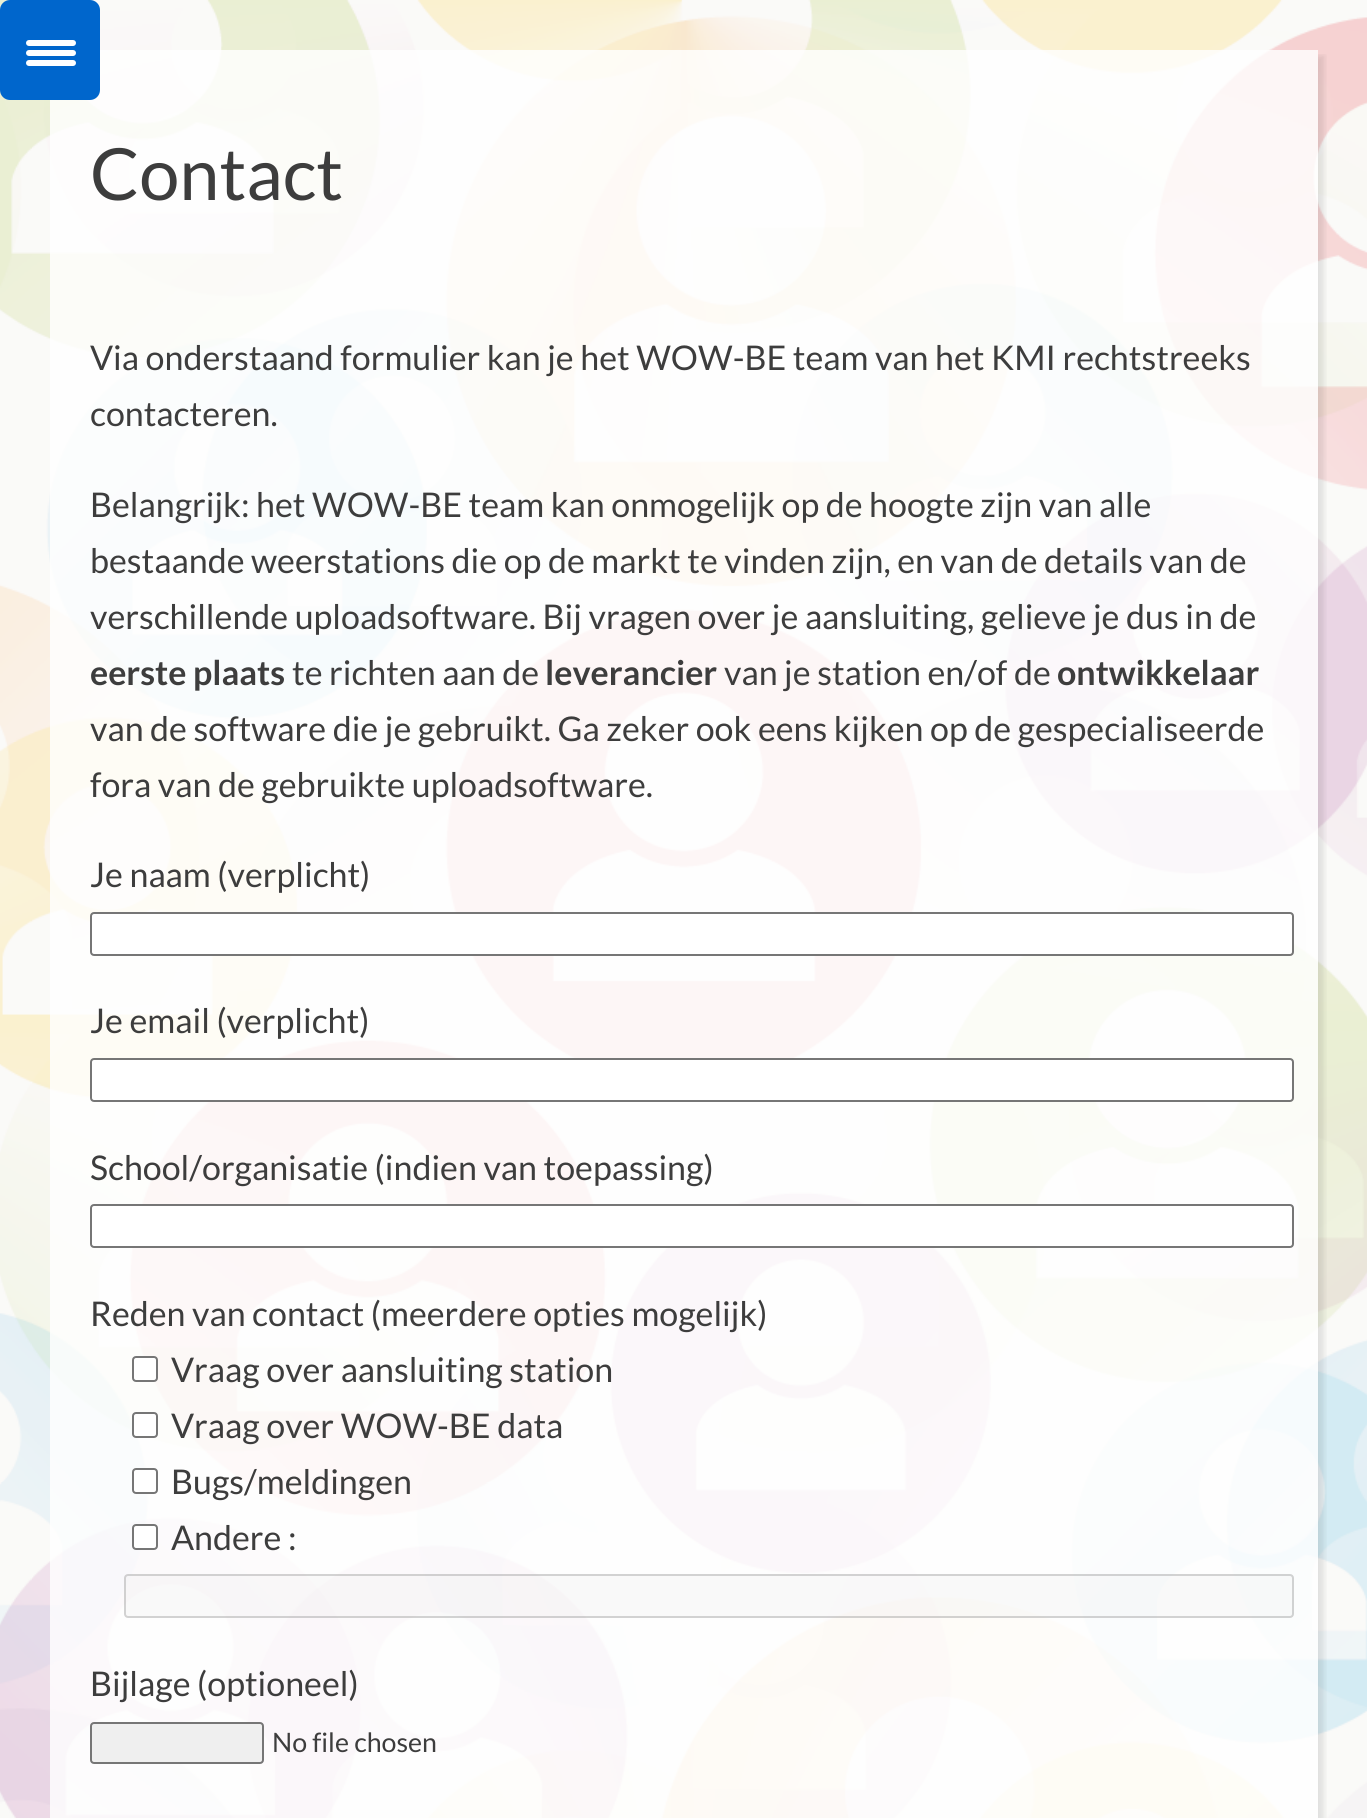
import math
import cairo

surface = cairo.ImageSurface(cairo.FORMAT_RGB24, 1367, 1818)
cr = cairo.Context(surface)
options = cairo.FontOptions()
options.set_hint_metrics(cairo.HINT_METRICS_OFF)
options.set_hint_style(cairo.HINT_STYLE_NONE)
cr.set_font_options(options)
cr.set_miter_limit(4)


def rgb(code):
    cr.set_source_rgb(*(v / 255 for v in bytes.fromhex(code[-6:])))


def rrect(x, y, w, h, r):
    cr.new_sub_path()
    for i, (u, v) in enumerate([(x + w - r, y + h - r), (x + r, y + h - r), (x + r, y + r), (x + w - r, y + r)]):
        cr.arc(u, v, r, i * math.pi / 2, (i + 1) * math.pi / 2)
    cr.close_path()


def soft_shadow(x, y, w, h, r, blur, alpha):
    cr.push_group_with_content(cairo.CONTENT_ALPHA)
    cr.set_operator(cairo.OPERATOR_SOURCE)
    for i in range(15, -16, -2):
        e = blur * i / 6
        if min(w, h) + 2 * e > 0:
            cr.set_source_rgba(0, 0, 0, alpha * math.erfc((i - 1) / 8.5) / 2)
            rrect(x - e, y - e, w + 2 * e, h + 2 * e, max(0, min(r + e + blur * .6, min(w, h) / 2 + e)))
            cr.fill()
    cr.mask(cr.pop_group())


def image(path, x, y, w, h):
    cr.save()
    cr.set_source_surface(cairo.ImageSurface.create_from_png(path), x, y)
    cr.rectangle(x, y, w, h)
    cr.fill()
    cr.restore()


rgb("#ffffff")
cr.paint()
image("img/1.png", 0, 0, 1367, 1818)
cr.save()
cr.rectangle(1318, 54, 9, 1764)
cr.clip()
rgb("#000000")
soft_shadow(56, 56, 1268, 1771, 0, 3, 0.1)
cr.restore()
rgb("#0066cc")
rrect(0, 0, 100, 100, 10)
cr.fill()
rgb("#ffffff")
rrect(26, 50, 50, 6, 3)
cr.fill()
rrect(26, 40, 50, 6, 3)
cr.fill()
rrect(26, 60, 50, 6, 3)
cr.fill()
rrect(91, 913, 1202, 42, 3)
cr.fill_preserve()
rgb("#767676")
cr.stroke()
rgb("#ffffff")
rrect(91, 1059, 1202, 42, 3)
cr.fill_preserve()
rgb("#767676")
cr.stroke()
rgb("#ffffff")
rrect(91, 1205, 1202, 42, 3)
cr.fill_preserve()
rgb("#767676")
cr.stroke()
rgb("#ffffff")
rrect(133, 1357, 24, 24, 3)
cr.fill_preserve()
rgb("#767676")
cr.stroke()
rgb("#ffffff")
rrect(133, 1413, 24, 24, 3)
cr.fill_preserve()
rgb("#767676")
cr.stroke()
rgb("#ffffff")
rrect(133, 1469, 24, 24, 3)
cr.fill_preserve()
rgb("#767676")
cr.stroke()
rgb("#ffffff")
rrect(133, 1525, 24, 24, 3)
cr.fill_preserve()
rgb("#767676")
cr.stroke()
cr.set_source_rgba(0.937, 0.937, 0.937, 0.3)
rrect(124, 1574, 1170, 44, 4)
cr.fill()
rrect(125, 1575, 1168, 42, 3)
cr.set_source_rgba(0.463, 0.463, 0.463, 0.3)
cr.stroke()
rgb("#efefef")
rrect(91, 1723, 172, 40, 3)
cr.fill_preserve()
rgb("#767676")
cr.stroke()
cr.select_font_face("Lato")
cr.set_font_size(72)
rgb("#3d3d3d")
cr.move_to(90, 200)
cr.show_text("Contact")
cr.set_font_size(34)
for x, y, s in [
    (90, 370, "Via onderstaand formulier kan je het WOW-BE team van het KMI rechtstreeks"),
    (90, 426, "contacteren."),
    (90, 517, "Belangrijk: het WOW-BE team kan onmogelijk op de hoogte zijn van alle"),
    (90, 573, "bestaande weerstations die op de markt te vinden zijn, en van de details van de"),
    (90, 629, "verschillende uploadsoftware. Bij vragen over je aansluiting, gelieve je dus in de"),
]:
    cr.move_to(x, y)
    cr.show_text(s)
cr.select_font_face("Lato", cairo.FONT_SLANT_NORMAL, cairo.FONT_WEIGHT_BOLD)
cr.move_to(90, 685)
cr.show_text("eerste plaats")
cr.select_font_face("Lato")
cr.move_to(292, 685)
cr.show_text("te richten aan de")
cr.select_font_face("Lato", cairo.FONT_SLANT_NORMAL, cairo.FONT_WEIGHT_BOLD)
cr.move_to(545, 685)
cr.show_text("leverancier")
cr.select_font_face("Lato")
cr.move_to(724, 685)
cr.show_text("van je station en/of de")
cr.select_font_face("Lato", cairo.FONT_SLANT_NORMAL, cairo.FONT_WEIGHT_BOLD)
cr.move_to(1057, 685)
cr.show_text("ontwikkelaar")
cr.select_font_face("Lato")
for x, y, s in [
    (90, 741, "van de software die je gebruikt. Ga zeker ook eens kijken op de gespecialiseerde"),
    (90, 797, "fora van de gebruikte uploadsoftware."),
    (90, 887, "Je naam (verplicht)"),
    (90, 1033, "Je email (verplicht)"),
    (90, 1180, "School/organisatie (indien van toepassing)"),
    (90, 1326, "Reden van contact (meerdere opties mogelijk)"),
    (171, 1382, "Vraag over aansluiting station"),
    (171, 1438, "Vraag over WOW-BE data"),
    (171, 1494, "Bugs/meldingen"),
    (171, 1550, "Andere :"),
    (90, 1696, "Bijlage (optioneel)"),
]:
    cr.move_to(x, y)
    cr.show_text(s)
cr.set_font_size(26.75)
cr.move_to(272, 1752)
cr.show_text("No file chosen")
surface.write_to_png("page.png")
